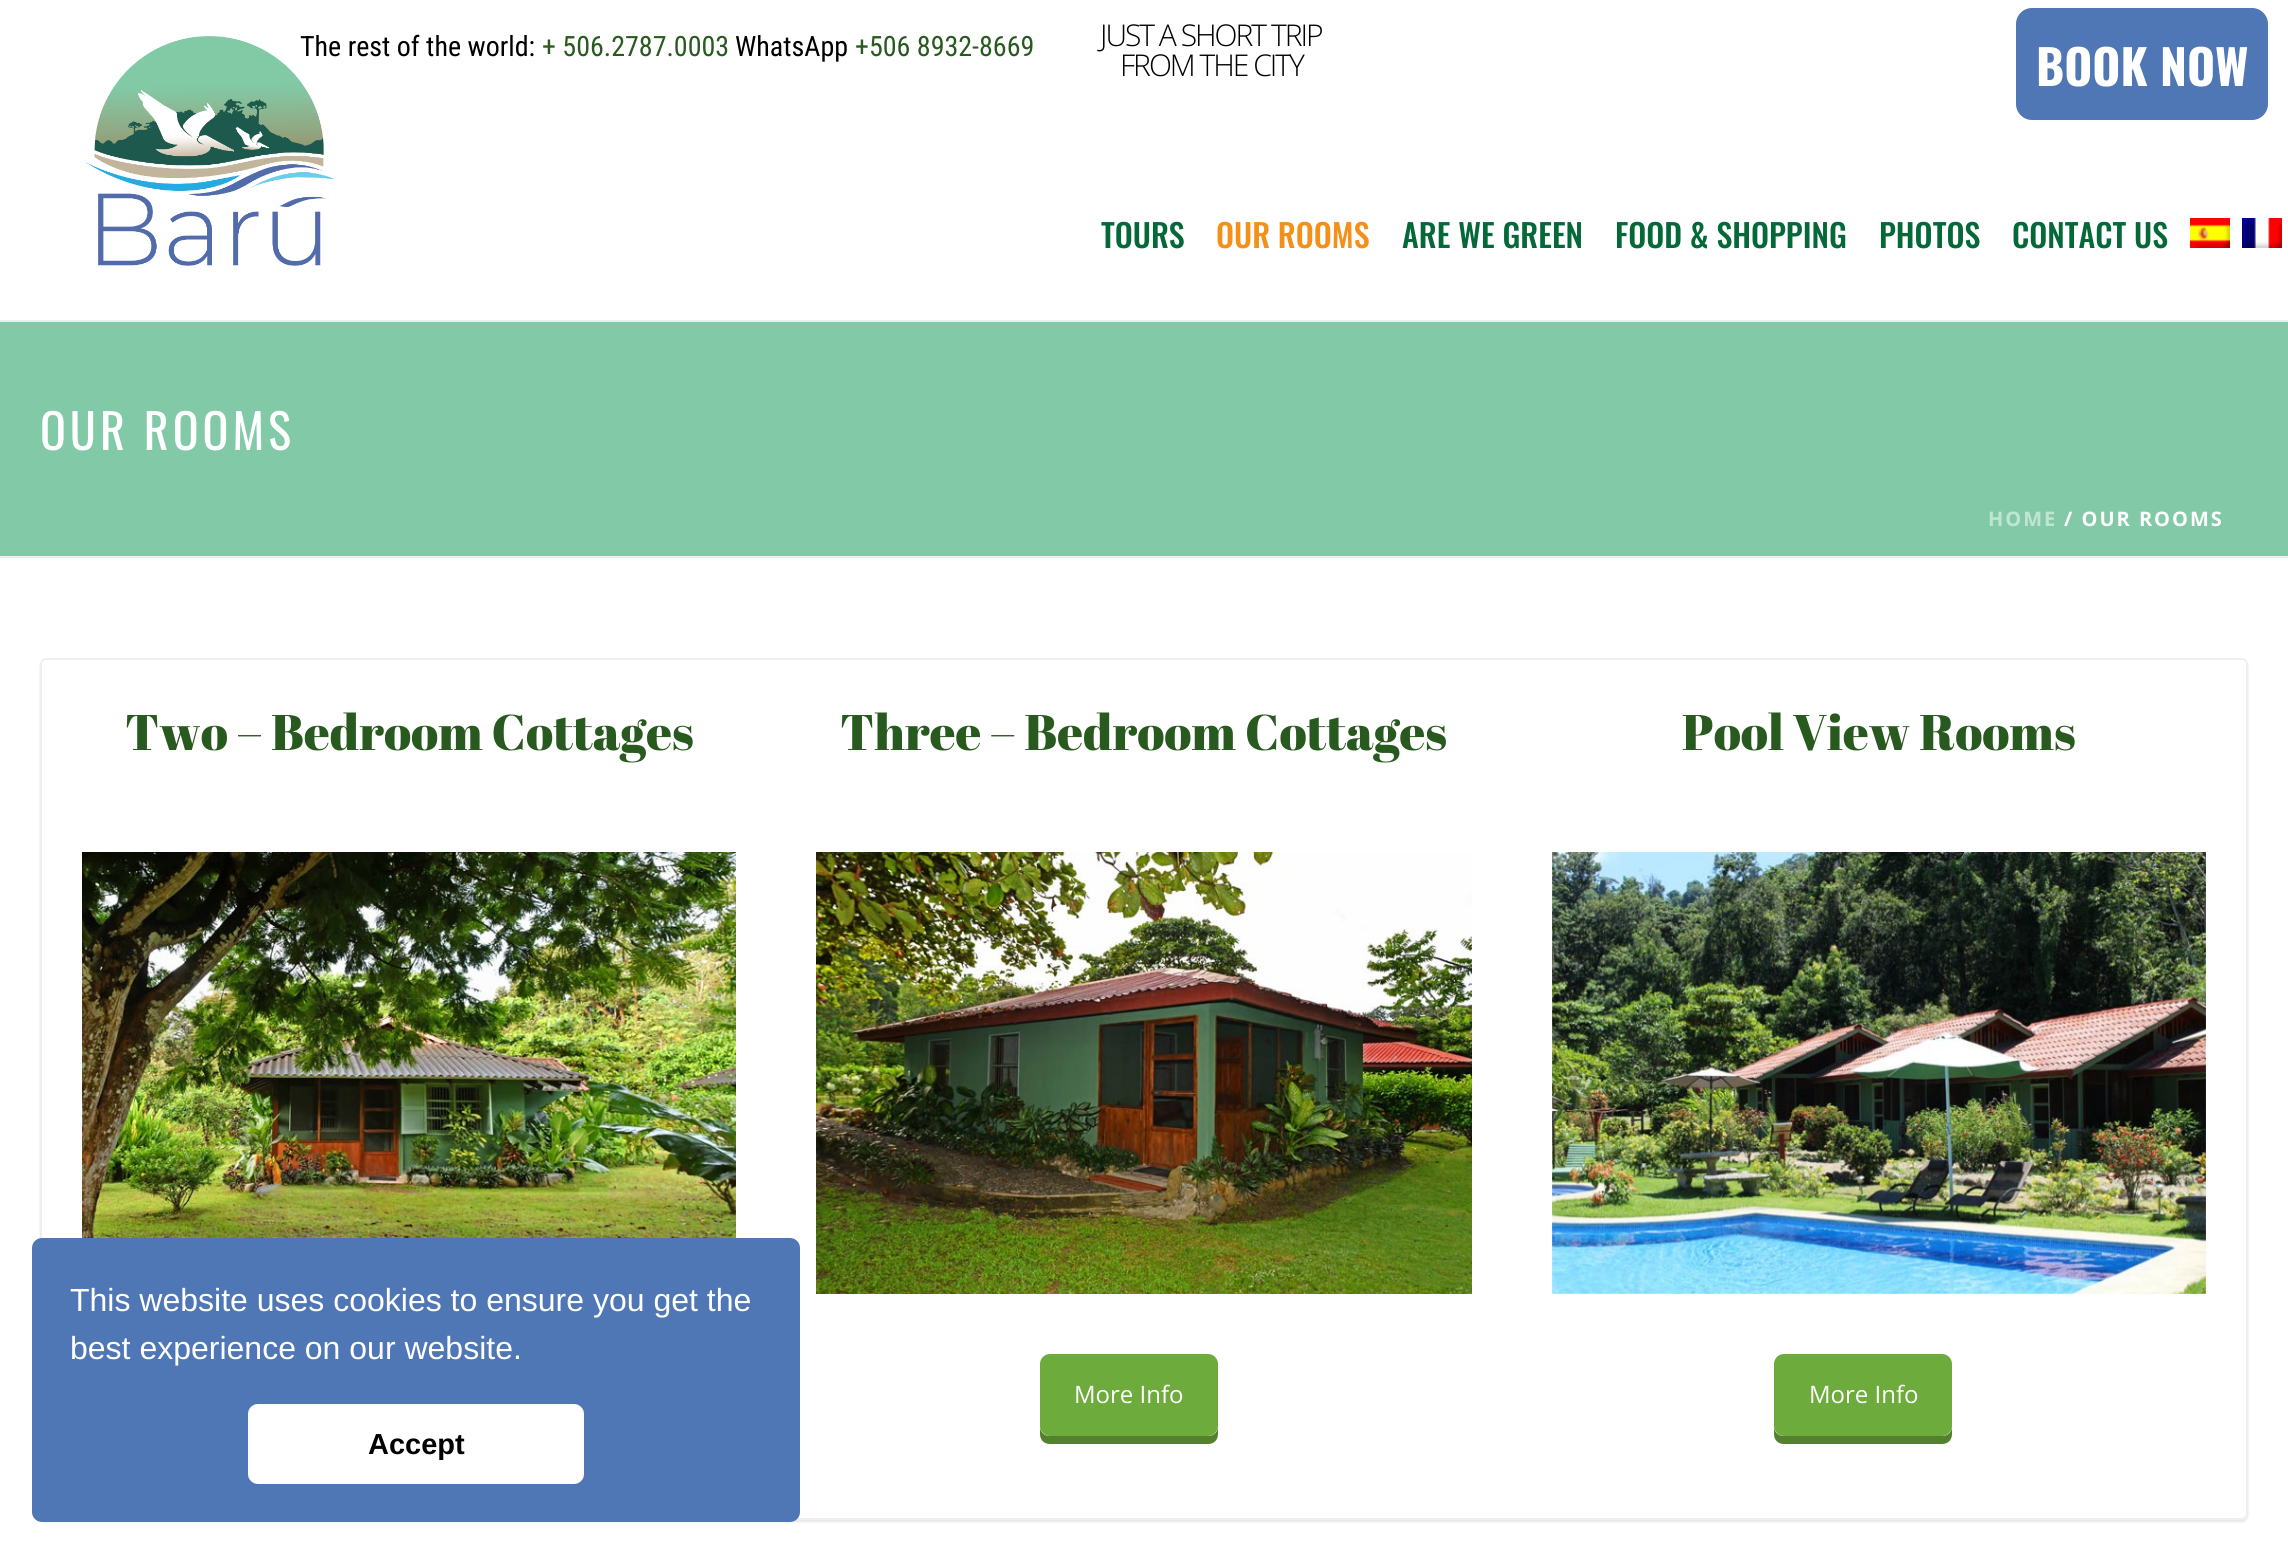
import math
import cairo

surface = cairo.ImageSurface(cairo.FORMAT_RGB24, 2288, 1553)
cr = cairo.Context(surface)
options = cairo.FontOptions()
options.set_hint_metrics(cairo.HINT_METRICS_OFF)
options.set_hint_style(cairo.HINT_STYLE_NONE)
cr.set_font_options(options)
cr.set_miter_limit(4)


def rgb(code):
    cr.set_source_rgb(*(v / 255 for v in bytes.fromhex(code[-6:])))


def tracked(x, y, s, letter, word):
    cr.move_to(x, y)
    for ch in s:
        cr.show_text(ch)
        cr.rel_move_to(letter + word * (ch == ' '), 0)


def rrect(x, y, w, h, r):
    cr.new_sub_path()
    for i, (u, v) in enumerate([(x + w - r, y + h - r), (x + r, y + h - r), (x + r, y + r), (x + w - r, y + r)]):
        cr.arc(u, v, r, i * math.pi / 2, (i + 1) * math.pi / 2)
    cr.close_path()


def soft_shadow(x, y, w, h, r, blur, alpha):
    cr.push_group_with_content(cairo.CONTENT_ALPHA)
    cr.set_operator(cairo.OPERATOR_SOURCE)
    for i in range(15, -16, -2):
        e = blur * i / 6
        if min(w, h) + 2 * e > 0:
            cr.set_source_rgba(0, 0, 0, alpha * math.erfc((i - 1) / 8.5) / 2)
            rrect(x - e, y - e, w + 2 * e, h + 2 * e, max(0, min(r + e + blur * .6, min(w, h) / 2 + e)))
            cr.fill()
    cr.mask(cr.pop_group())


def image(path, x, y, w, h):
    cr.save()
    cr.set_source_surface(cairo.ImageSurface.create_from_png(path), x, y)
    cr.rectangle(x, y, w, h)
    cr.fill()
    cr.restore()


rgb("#ffffff")
cr.paint()
rgb("#ededed")
cr.rectangle(0, 556, 2288, 2)
cr.fill()
rgb("#4f76b5")
rrect(2016, 8, 252, 112, 16)
cr.fill()
rgb("#ededed")
cr.rectangle(0, 320, 2288, 2)
cr.fill()
image("img/2.png", 2190, 218, 40, 30)
image("img/3.png", 2242, 218, 40, 30)
rgb("#82caa7")
cr.rectangle(0, 322, 2288, 234)
cr.fill()
cr.save()
cr.set_fill_rule(cairo.FILL_RULE_EVEN_ODD)
cr.new_path()
cr.move_to(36, 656)
cr.line_to(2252, 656)
cr.line_to(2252, 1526)
cr.line_to(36, 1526)
cr.close_path()
cr.move_to(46, 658)
cr.line_to(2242, 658)
cr.curve_to(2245.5, 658, 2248, 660.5, 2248, 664)
cr.line_to(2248, 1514)
cr.curve_to(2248, 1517.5, 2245.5, 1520, 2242, 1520)
cr.line_to(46, 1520)
cr.curve_to(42.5, 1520, 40, 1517.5, 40, 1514)
cr.line_to(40, 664)
cr.curve_to(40, 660.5, 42.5, 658, 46, 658)
cr.close_path()
cr.clip()
rgb("#000000")
soft_shadow(40, 660, 2208, 862, 6, 1, 0.1)
cr.restore()
rrect(41, 659, 2206, 860, 5)
cr.set_source_rgba(0, 0, 0, 0.07)
cr.stroke()
image("img/4.png", 82, 852, 654, 386)
image("img/5.png", 816, 852, 656, 442)
rgb("#53812d")
cr.new_path()
cr.move_to(1040, 1426)
cr.line_to(1040, 1434)
cr.curve_to(1040, 1440, 1044, 1444, 1050, 1444)
cr.line_to(1208, 1444)
cr.curve_to(1214, 1444, 1218, 1440, 1218, 1434)
cr.line_to(1218, 1426)
cr.curve_to(1218, 1432, 1214, 1436, 1208, 1436)
cr.line_to(1050, 1436)
cr.curve_to(1044, 1436, 1040, 1432, 1040, 1426)
cr.close_path()
cr.fill()
rgb("#6dab3c")
rrect(1040, 1354, 178, 82, 10)
cr.fill()
image("img/6.png", 1552, 852, 654, 442)
rgb("#53812d")
cr.new_path()
cr.move_to(1774, 1426)
cr.line_to(1774, 1434)
cr.curve_to(1774, 1440, 1778, 1444, 1784, 1444)
cr.line_to(1942, 1444)
cr.curve_to(1948, 1444, 1952, 1440, 1952, 1434)
cr.line_to(1952, 1426)
cr.curve_to(1952, 1432, 1948, 1436, 1942, 1436)
cr.line_to(1784, 1436)
cr.curve_to(1778, 1436, 1774, 1432, 1774, 1426)
cr.close_path()
cr.fill()
rgb("#6dab3c")
rrect(1774, 1354, 178, 82, 10)
cr.fill()
rgb("#4f76b5")
rrect(32, 1238, 768, 284, 10)
cr.fill()
rgb("#ffffff")
rrect(248, 1404, 336, 80, 10)
cr.fill()
cr.select_font_face("Roboto Condensed")
cr.set_font_size(28)
rgb("#000000")
cr.move_to(300, 56)
cr.show_text("The rest of the world:")
rgb("#28591e")
cr.move_to(542, 56)
cr.show_text("+ 506.2787.0003")
rgb("#000000")
cr.move_to(735, 56)
cr.show_text("WhatsApp")
rgb("#28591e")
cr.move_to(855, 56)
cr.show_text("+506 8932-8669")
cr.select_font_face("Open Sans Light")
cr.set_font_size(30)
rgb("#000000")
tracked(1100, 46, "JUST A SHORT TRIP", -2, 0)
tracked(1120, 76, "FROM THE CITY", -2, 0)
cr.select_font_face("Oswald", cairo.FONT_SLANT_NORMAL, cairo.FONT_WEIGHT_BOLD)
cr.set_font_size(48)
rgb("#ffffff")
cr.move_to(2036, 86)
cr.show_text("BOOK NOW")
image("img/1.png", 85, 36, 250, 230)
cr.select_font_face("Oswald Medium")
cr.set_font_size(32)
rgb("#056839")
cr.move_to(1101, 248)
cr.show_text("TOURS")
rgb("#f49019")
cr.move_to(1216, 248)
cr.show_text("OUR ROOMS")
rgb("#056839")
for x, y, s in [
    (1402, 248, "ARE WE GREEN"),
    (1615, 248, "FOOD & SHOPPING"),
    (1879, 248, "PHOTOS"),
    (2012, 248, "CONTACT US"),
]:
    cr.move_to(x, y)
    cr.show_text(s)
cr.select_font_face("Oswald")
cr.set_font_size(48)
rgb("#ffffff")
tracked(40, 450, "OUR ROOMS", 4, 0)
cr.select_font_face("Open Sans", cairo.FONT_SLANT_NORMAL, cairo.FONT_WEIGHT_BOLD)
cr.set_font_size(20)
rgb("#c1e5d3")
tracked(1988, 526, "HOME", 2, 0)
rgb("#ffffff")
tracked(2064, 526, "/ OUR ROOMS", 2, 0)
cr.select_font_face("Abril Fatface")
cr.set_font_size(50)
rgb("#28591e")
cr.move_to(125, 750)
cr.show_text("Two – Bedroom Cottages")
cr.move_to(840, 750)
cr.show_text("Three – Bedroom Cottages")
cr.select_font_face("Open Sans")
cr.set_font_size(24)
rgb("#ffffff")
cr.move_to(1074, 1403)
cr.show_text("More Info")
cr.select_font_face("Abril Fatface")
cr.set_font_size(50)
rgb("#28591e")
cr.move_to(1682, 750)
cr.show_text("Pool View Rooms")
cr.select_font_face("Open Sans")
cr.set_font_size(24)
rgb("#ffffff")
cr.move_to(1809, 1403)
cr.show_text("More Info")
cr.select_font_face("Liberation Sans")
cr.set_font_size(32)
cr.move_to(70, 1311)
cr.show_text("This website uses cookies to ensure you get the")
cr.move_to(70, 1359)
cr.show_text("best experience on our website.")
cr.select_font_face("Liberation Sans", cairo.FONT_SLANT_NORMAL, cairo.FONT_WEIGHT_BOLD)
cr.set_font_size(29)
rgb("#000000")
cr.move_to(368, 1454)
cr.show_text("Accept")
surface.write_to_png("page.png")
